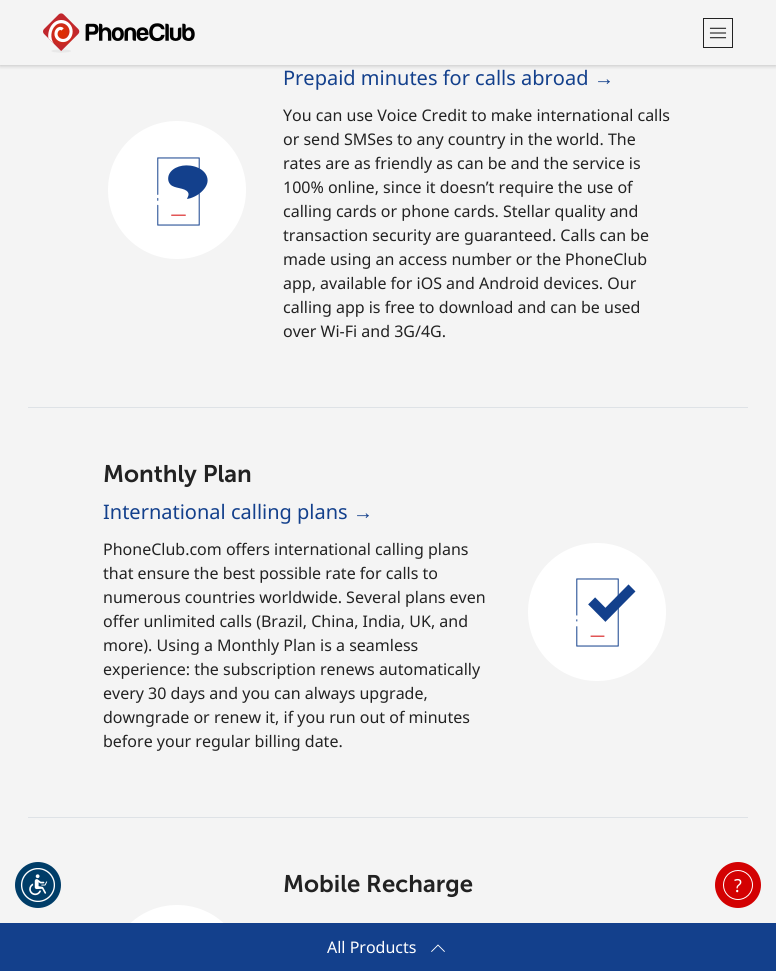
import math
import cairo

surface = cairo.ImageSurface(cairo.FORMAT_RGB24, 776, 971)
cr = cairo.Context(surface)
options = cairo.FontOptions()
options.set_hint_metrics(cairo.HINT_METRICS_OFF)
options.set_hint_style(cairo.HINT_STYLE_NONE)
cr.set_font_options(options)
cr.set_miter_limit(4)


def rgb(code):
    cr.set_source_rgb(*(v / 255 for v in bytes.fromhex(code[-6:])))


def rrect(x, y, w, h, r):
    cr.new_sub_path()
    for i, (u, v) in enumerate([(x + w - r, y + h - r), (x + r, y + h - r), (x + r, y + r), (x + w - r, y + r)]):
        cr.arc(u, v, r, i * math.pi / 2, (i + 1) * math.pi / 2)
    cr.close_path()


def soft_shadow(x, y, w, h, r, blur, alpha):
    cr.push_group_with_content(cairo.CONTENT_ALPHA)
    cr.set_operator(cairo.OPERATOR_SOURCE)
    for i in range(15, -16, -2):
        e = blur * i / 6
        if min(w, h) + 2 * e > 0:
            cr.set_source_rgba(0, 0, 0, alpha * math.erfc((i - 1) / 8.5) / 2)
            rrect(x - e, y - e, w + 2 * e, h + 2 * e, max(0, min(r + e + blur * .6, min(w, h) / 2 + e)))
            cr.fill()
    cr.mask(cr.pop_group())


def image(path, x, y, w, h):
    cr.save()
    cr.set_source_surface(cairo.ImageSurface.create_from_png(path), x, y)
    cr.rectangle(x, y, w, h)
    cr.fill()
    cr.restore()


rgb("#f4f4f4")
cr.paint()
rgb("#000000")
soft_shadow(0, 1, 776, 65, 0, 2, 0.2)
rgb("#f4f4f4")
cr.rectangle(0, 0, 776, 65)
cr.fill()
image("img/1.png", 43, 13, 152, 40)
cr.rectangle(703.5, 18.5, 29, 29)
rgb("#222222")
cr.set_line_width(1)
cr.stroke()
image("img/2.png", 709, 27, 18, 12)
rgb("#dee2e6")
cr.rectangle(28, 407, 720, 1)
cr.fill()
image("img/3.png", 108, 121, 138, 138)
cr.rectangle(28, 817, 720, 1)
cr.fill()
image("img/4.png", 528, 543, 138, 138)
image("img/5.png", 130, 905, 94, 18)
rgb("#003d68")
cr.arc(38, 885, 23, 0, 2 * math.pi)
cr.fill()
image("img/6.png", 20, 868, 35, 34)
rgb("#d30102")
cr.arc(738, 885, 23, 0, 2 * math.pi)
cr.fill()
cr.arc(738, 885, 14.5, 0, 2 * math.pi)
rgb("#ffffff")
cr.stroke()
rgb("#13408c")
cr.rectangle(0, 923, 776, 48)
cr.fill()
image("img/7.png", 431, 944, 14, 8)
cr.select_font_face("Noto Sans")
cr.set_font_size(20)
cr.move_to(283, 85)
cr.show_text("Prepaid minutes for calls abroad")
cr.select_font_face("Liberation Sans")
cr.move_to(594, 85)
cr.show_text("→")
cr.select_font_face("Noto Sans")
cr.set_font_size(16)
rgb("#222222")
for x, y, s in [
    (283, 121, "You can use Voice Credit to make international calls"),
    (283, 145, "or send SMSes to any country in the world. The"),
    (283, 169, "rates are as friendly as can be and the service is"),
    (283, 193, "100% online, since it doesn’t require the use of"),
    (283, 217, "calling cards or phone cards. Stellar quality and"),
    (283, 241, "transaction security are guaranteed. Calls can be"),
    (283, 265, "made using an access number or the PhoneClub"),
    (283, 289, "app, available for iOS and Android devices. Our"),
    (283, 313, "calling app is free to download and can be used"),
    (283, 337, "over Wi-Fi and 3G/4G."),
]:
    cr.move_to(x, y)
    cr.show_text(s)
cr.select_font_face("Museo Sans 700 SemiBold")
cr.set_font_size(24)
cr.move_to(103, 482)
cr.show_text("Monthly Plan")
cr.select_font_face("Noto Sans")
cr.set_font_size(20)
rgb("#13408c")
cr.move_to(103, 519)
cr.show_text("International calling plans")
cr.select_font_face("Liberation Sans")
cr.move_to(353, 519)
cr.show_text("→")
cr.select_font_face("Noto Sans")
cr.set_font_size(16)
rgb("#222222")
for x, y, s in [
    (103, 555, "PhoneClub.com offers international calling plans"),
    (103, 579, "that ensure the best possible rate for calls to"),
    (103, 603, "numerous countries worldwide. Several plans even"),
    (103, 627, "offer unlimited calls (Brazil, China, India, UK, and"),
    (103, 651, "more). Using a Monthly Plan is a seamless"),
    (103, 675, "experience: the subscription renews automatically"),
    (103, 699, "every 30 days and you can always upgrade,"),
    (103, 723, "downgrade or renew it, if you run out of minutes"),
    (103, 747, "before your regular billing date."),
]:
    cr.move_to(x, y)
    cr.show_text(s)
cr.select_font_face("Museo Sans 700 SemiBold")
cr.set_font_size(24)
cr.move_to(283, 892)
cr.show_text("Mobile Recharge")
cr.select_font_face("Noto Sans")
cr.set_font_size(18)
rgb("#ffffff")
cr.move_to(734, 892)
cr.show_text("?")
cr.set_font_size(16)
cr.move_to(327, 953)
cr.show_text("All Products")
surface.write_to_png("page.png")
